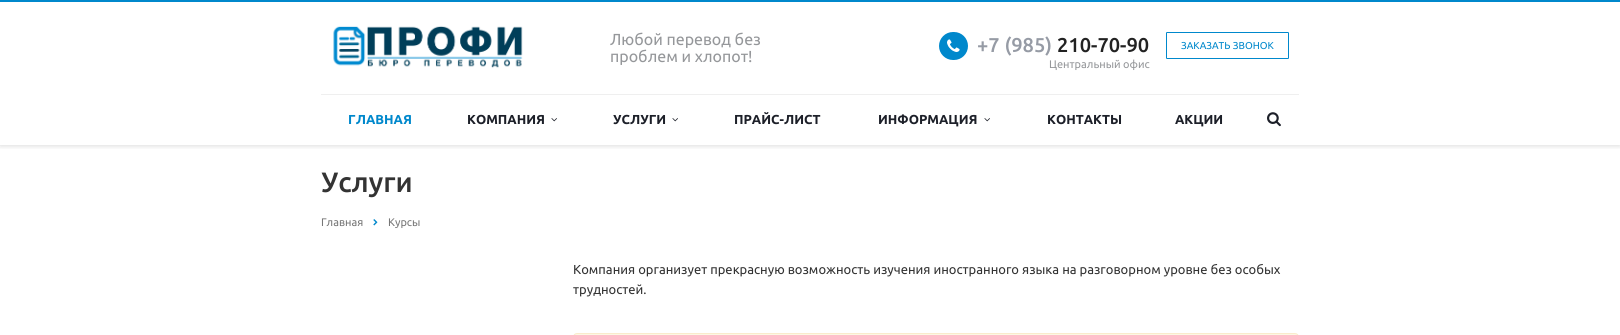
import math
import cairo

surface = cairo.ImageSurface(cairo.FORMAT_RGB24, 1620, 335)
cr = cairo.Context(surface)
options = cairo.FontOptions()
options.set_hint_metrics(cairo.HINT_METRICS_OFF)
options.set_hint_style(cairo.HINT_STYLE_NONE)
cr.set_font_options(options)
cr.set_miter_limit(4)


def rgb(code):
    cr.set_source_rgb(*(v / 255 for v in bytes.fromhex(code[-6:])))


def rrect(x, y, w, h, r):
    cr.new_sub_path()
    for i, (u, v) in enumerate([(x + w - r, y + h - r), (x + r, y + h - r), (x + r, y + r), (x + w - r, y + r)]):
        cr.arc(u, v, r, i * math.pi / 2, (i + 1) * math.pi / 2)
    cr.close_path()


def soft_shadow(x, y, w, h, r, blur, alpha):
    cr.push_group_with_content(cairo.CONTENT_ALPHA)
    cr.set_operator(cairo.OPERATOR_SOURCE)
    for i in range(15, -16, -2):
        e = blur * i / 6
        if min(w, h) + 2 * e > 0:
            cr.set_source_rgba(0, 0, 0, alpha * math.erfc((i - 1) / 8.5) / 2)
            rrect(x - e, y - e, w + 2 * e, h + 2 * e, max(0, min(r + e + blur * .6, min(w, h) / 2 + e)))
            cr.fill()
    cr.mask(cr.pop_group())


def image(path, x, y, w, h):
    cr.save()
    cr.set_source_surface(cairo.ImageSurface.create_from_png(path), x, y)
    cr.rectangle(x, y, w, h)
    cr.fill()
    cr.restore()


rgb("#ffffff")
cr.paint()
cr.save()
cr.rectangle(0, 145, 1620, 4)
cr.clip()
rgb("#000000")
soft_shadow(0, 1, 1620, 145, 0, 2.5, 0.14)
cr.restore()
rgb("#0088cc")
cr.rectangle(0, 0, 1620, 2)
cr.fill()
image("img/1.png", 321, 22, 212, 50)
rrect(939, 32, 29, 28, 14)
cr.fill()
image("img/2.png", 947, 39, 13, 13)
rrect(1166.5, 32.5, 122, 26, 0.5)
cr.set_line_width(1)
cr.stroke()
rgb("#efefef")
cr.rectangle(321, 94, 978, 1)
cr.fill()
image("img/3.png", 551, 118, 6, 4)
image("img/3.png", 672, 118, 6, 4)
image("img/3.png", 984, 118, 6, 4)
image("img/4.png", 1267, 112, 14, 15)
image("img/5.png", 373, 219, 5, 7)
rgb("#fcf8e3")
rrect(573.5, 333.5, 725, 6, 3.5)
cr.fill_preserve()
rgb("#faebcc")
cr.stroke()
cr.select_font_face("Ubuntu")
cr.set_font_size(16)
rgb("#95979a")
cr.move_to(610, 45)
cr.show_text("Любой перевод без")
cr.move_to(610, 62)
cr.show_text("проблем и хлопот!")
cr.select_font_face("Ubuntu Medium")
cr.set_font_size(20)
rgb("#969ba5")
cr.move_to(977, 52)
cr.show_text("+7 (985)")
rgb("#222222")
cr.move_to(1057, 52)
cr.show_text("210-70-90")
cr.select_font_face("Ubuntu")
cr.set_font_size(11)
rgb("#95979a")
cr.move_to(1049, 68)
cr.show_text("Центральный офис")
cr.set_font_size(10)
rgb("#0088cc")
cr.move_to(1181, 49)
cr.show_text("ЗАКАЗАТЬ ЗВОНОК")
cr.select_font_face("Ubuntu", cairo.FONT_SLANT_NORMAL, cairo.FONT_WEIGHT_BOLD)
cr.set_font_size(13)
cr.move_to(348, 124)
cr.show_text("ГЛАВНАЯ")
rgb("#1d2029")
for x, y, s in [
    (467, 124, "КОМПАНИЯ"),
    (613, 124, "УСЛУГИ"),
    (734, 124, "ПРАЙС-ЛИСТ"),
    (878, 124, "ИНФОРМАЦИЯ"),
    (1047, 124, "КОНТАКТЫ"),
    (1175, 124, "АКЦИИ"),
]:
    cr.move_to(x, y)
    cr.show_text(s)
cr.select_font_face("Ubuntu Medium")
cr.set_font_size(28)
rgb("#333333")
cr.move_to(321, 192)
cr.show_text("Услуги")
cr.select_font_face("Ubuntu")
cr.set_font_size(11)
rgb("#777777")
cr.move_to(321, 226)
cr.show_text("Главная")
cr.move_to(388, 226)
cr.show_text("Курсы")
cr.set_font_size(13)
rgb("#333333")
cr.move_to(573, 274)
cr.show_text("Компания организует прекрасную возможность изучения иностранного языка на разговорном уровне без особых")
cr.move_to(573, 294)
cr.show_text("трудностей.")
surface.write_to_png("page.png")
